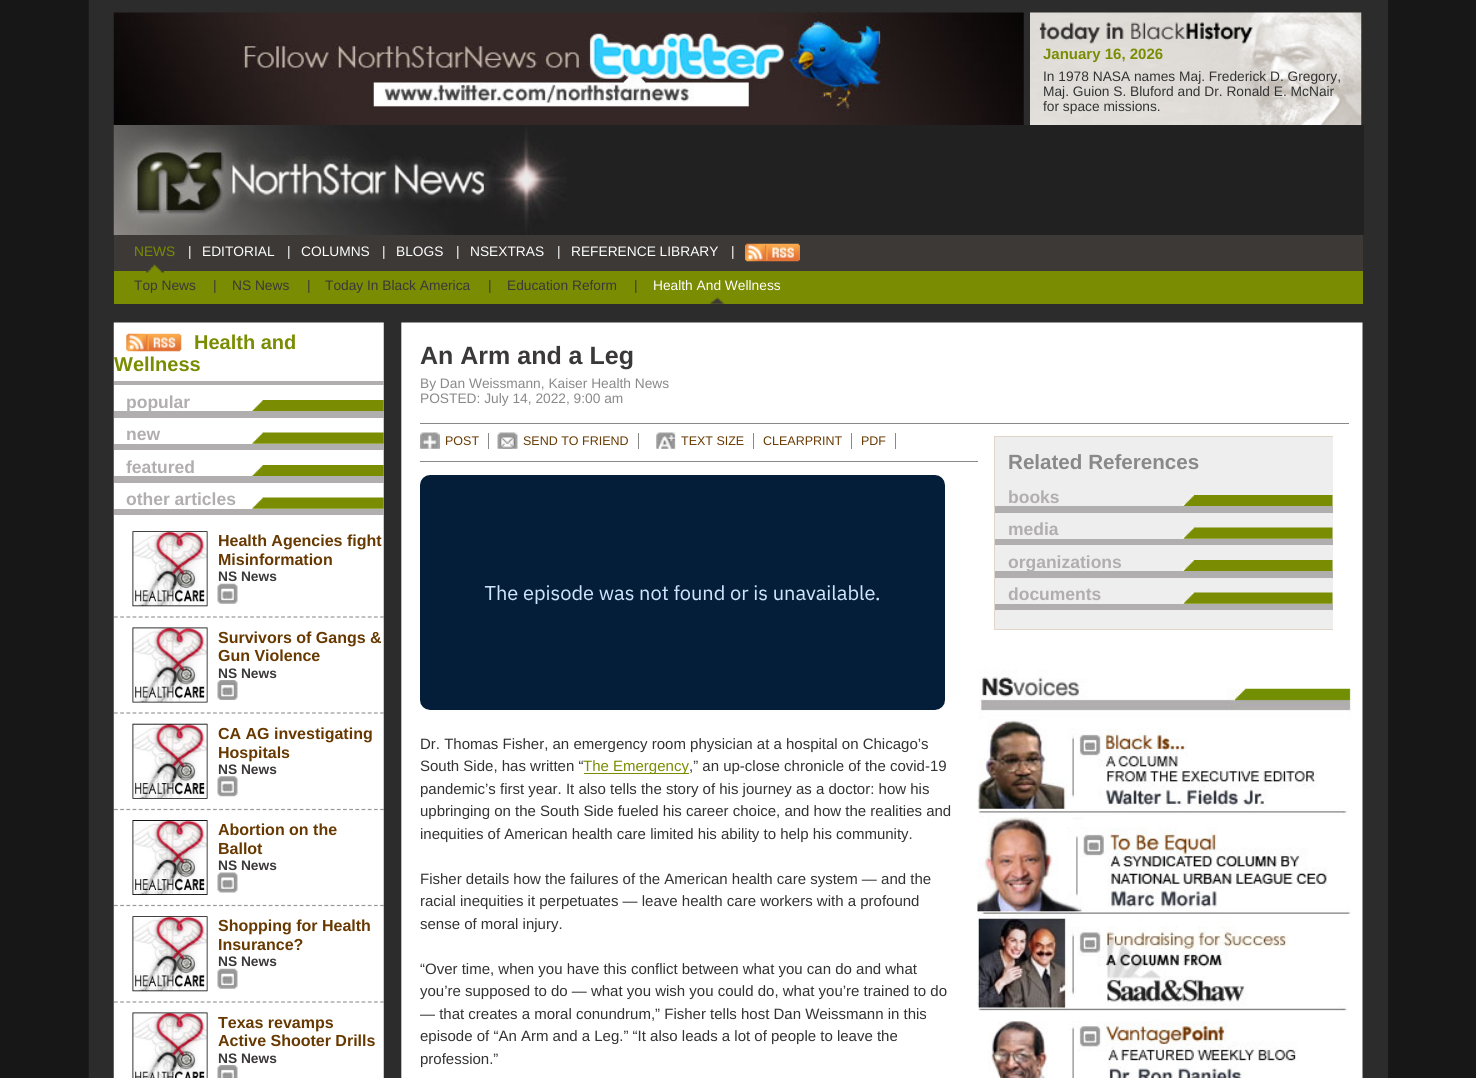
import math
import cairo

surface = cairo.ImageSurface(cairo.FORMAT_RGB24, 1476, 1078)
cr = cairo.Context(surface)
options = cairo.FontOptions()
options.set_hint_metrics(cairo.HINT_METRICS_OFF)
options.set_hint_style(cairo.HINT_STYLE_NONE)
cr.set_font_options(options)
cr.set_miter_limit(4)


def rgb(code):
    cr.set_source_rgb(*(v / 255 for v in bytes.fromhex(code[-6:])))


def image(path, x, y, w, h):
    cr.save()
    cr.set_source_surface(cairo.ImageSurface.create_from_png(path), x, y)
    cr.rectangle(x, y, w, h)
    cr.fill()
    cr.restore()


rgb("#171717")
cr.paint()
rgb("#2c2c2c")
cr.rectangle(89, 0, 1299, 1078)
cr.fill()
rgb("#1c1c1c")
cr.rectangle(88, 0, 1, 1078)
cr.fill()
image("img/1.png", 113, 12, 911, 113)
image("img/2.png", 1030, 12, 332, 113)
rgb("#212121")
cr.rectangle(567, 125, 797, 110)
cr.fill()
image("img/3.png", 113, 125, 454, 110)
rgb("#3d3937")
cr.rectangle(114, 235, 1249, 36)
cr.fill()
image("img/4.png", 745, 243, 55, 19)
rgb("#7a8c02")
cr.rectangle(114, 271, 1249, 33)
cr.fill()
image("img/5.png", 146, 264, 18, 9)
image("img/6.png", 709, 297, 16, 7)
image("img/7.png", 113, 322, 1250, 756)
image("img/8.png", 126, 333, 56, 19)
rgb("#b0aeae")
cr.rectangle(114, 381, 270, 4)
cr.fill()
image("img/9.png", 252, 400, 132, 11)
cr.rectangle(114, 411, 270, 7)
cr.fill()
image("img/10.png", 252, 432, 132, 12)
cr.rectangle(114, 444, 270, 6)
cr.fill()
image("img/9.png", 252, 465, 132, 11)
cr.rectangle(114, 476, 270, 7)
cr.fill()
image("img/10.png", 252, 497, 132, 12)
cr.rectangle(114, 509, 270, 6)
cr.fill()
cr.new_path()
cr.move_to(114, 617)
cr.line_to(384, 617)
rgb("#989898")
cr.set_line_width(1.2)
cr.set_dash([3.75, 2.44])
cr.stroke()
image("img/11.png", 132, 531, 76, 76)
image("img/12.png", 217, 583, 21, 21)
cr.new_path()
cr.move_to(114, 713)
cr.line_to(384, 713)
cr.stroke()
image("img/13.png", 132, 627, 76, 76)
image("img/14.png", 217, 680, 21, 20)
cr.new_path()
cr.move_to(114, 809.5)
cr.line_to(384, 809.5)
cr.stroke()
image("img/15.png", 132, 723, 76, 76)
image("img/16.png", 217, 776, 21, 21)
cr.new_path()
cr.move_to(114, 905.5)
cr.line_to(384, 905.5)
cr.stroke()
image("img/17.png", 132, 820, 76, 75)
image("img/18.png", 217, 872, 21, 21)
cr.new_path()
cr.move_to(114, 1002)
cr.line_to(384, 1002)
cr.stroke()
image("img/19.png", 132, 916, 76, 76)
image("img/20.png", 217, 968, 21, 21)
image("img/21.png", 132, 1012, 76, 66)
image("img/22.png", 217, 1065, 21, 13)
rgb("#898989")
cr.rectangle(420, 461, 558, 1)
cr.fill()
image("img/23.png", 420, 432, 20, 17)
cr.rectangle(488, 433, 1, 16)
cr.fill()
image("img/24.png", 497, 432, 21, 17)
cr.rectangle(638, 433, 1, 16)
cr.fill()
image("img/25.png", 656, 432, 20, 17)
for x, y, w, h, color in [
    (753, 433, 1, 16, "#898989"),
    (851, 433, 1, 16, "#898989"),
    (895, 433, 1, 16, "#898989"),
]:
    rgb(color)
    cr.rectangle(x, y, w, h)
    cr.fill()
image("img/26.png", 420, 475, 525, 235)
for x, y, w, h, color in [
    (584, 773, 105, 1, "#7a8c02"),
    (420, 423, 929, 1, "#898989"),
    (995, 437, 338, 192, "#eeeeee"),
    (994, 436, 339, 1, "#e1d4c9"),
    (994, 629, 339, 1, "#e1d4c9"),
    (994, 436, 1, 194, "#e1d4c9"),
]:
    rgb(color)
    cr.rectangle(x, y, w, h)
    cr.fill()
image("img/27.png", 1182, 495, 151, 11)
rgb("#b0aeae")
cr.rectangle(995, 506, 338, 7)
cr.fill()
image("img/28.png", 1182, 527, 151, 12)
cr.rectangle(995, 539, 338, 6)
cr.fill()
image("img/27.png", 1182, 560, 151, 11)
cr.rectangle(995, 571, 338, 7)
cr.fill()
image("img/28.png", 1182, 592, 151, 12)
cr.rectangle(995, 604, 338, 6)
cr.fill()
image("img/29.png", 979, 669, 374, 50)
image("img/30.png", 977, 719, 371, 99)
image("img/31.png", 977, 817, 374, 100)
image("img/32.png", 977, 916, 371, 95)
image("img/33.png", 988, 1021, 310, 57)
cr.select_font_face("Liberation Sans", cairo.FONT_SLANT_NORMAL, cairo.FONT_WEIGHT_BOLD)
cr.set_font_size(15)
rgb("#7a8c02")
cr.move_to(1043, 59)
cr.show_text("January 16, 2026")
cr.select_font_face("Liberation Sans")
cr.set_font_size(13.75)
rgb("#333333")
for x, y, s in [
    (1043, 81, "In 1978 NASA names Maj. Frederick D. Gregory,"),
    (1043, 96, "Maj. Guion S. Bluford and Dr. Ronald E. McNair"),
    (1043, 111, "for space missions."),
]:
    cr.move_to(x, y)
    cr.show_text(s)
rgb("#7a8c02")
cr.move_to(134, 256)
cr.show_text("NEWS")
rgb("#3a3838")
for x, y, s in [
    (134, 290, "Top News"),
    (213, 290, "|"),
    (232, 290, "NS News"),
    (307, 290, "|"),
    (325, 290, "Today In Black America"),
    (488, 290, "|"),
    (507, 290, "Education Reform"),
    (634, 290, "|"),
]:
    cr.move_to(x, y)
    cr.show_text(s)
rgb("#ffffff")
for x, y, s in [
    (653, 290, "Health And Wellness"),
    (188, 256, "|"),
    (202, 256, "EDITORIAL"),
    (287, 256, "|"),
    (301, 256, "COLUMNS"),
    (382, 256, "|"),
    (396, 256, "BLOGS"),
    (456, 256, "|"),
    (470, 256, "NSEXTRAS"),
    (557, 256, "|"),
    (571, 256, "REFERENCE LIBRARY"),
    (731, 256, "|"),
]:
    cr.move_to(x, y)
    cr.show_text(s)
cr.select_font_face("Liberation Sans", cairo.FONT_SLANT_NORMAL, cairo.FONT_WEIGHT_BOLD)
cr.set_font_size(20)
rgb("#7a8c02")
cr.move_to(194, 349)
cr.show_text("Health and")
cr.move_to(114, 371)
cr.show_text("Wellness")
cr.set_font_size(17.5)
rgb("#b0aeae")
for x, y, s in [
    (126, 408, "popular"),
    (126, 440, "new"),
    (126, 473, "featured"),
    (126, 505, "other articles"),
]:
    cr.move_to(x, y)
    cr.show_text(s)
cr.set_font_size(16)
rgb("#673901")
cr.move_to(218, 546)
cr.show_text("Health Agencies fight")
cr.move_to(218, 565)
cr.show_text("Misinformation")
cr.set_font_size(13.75)
rgb("#3a3838")
cr.move_to(218, 581)
cr.show_text("NS News")
cr.set_font_size(16)
rgb("#673901")
cr.move_to(218, 643)
cr.show_text("Survivors of Gangs &")
cr.move_to(218, 661)
cr.show_text("Gun Violence")
cr.set_font_size(13.75)
rgb("#3a3838")
cr.move_to(218, 678)
cr.show_text("NS News")
cr.set_font_size(16)
rgb("#673901")
cr.move_to(218, 739)
cr.show_text("CA AG investigating")
cr.move_to(218, 758)
cr.show_text("Hospitals")
cr.set_font_size(13.75)
rgb("#3a3838")
cr.move_to(218, 774)
cr.show_text("NS News")
cr.set_font_size(16)
rgb("#673901")
cr.move_to(218, 835)
cr.show_text("Abortion on the")
cr.move_to(218, 854)
cr.show_text("Ballot")
cr.set_font_size(13.75)
rgb("#3a3838")
cr.move_to(218, 870)
cr.show_text("NS News")
cr.set_font_size(16)
rgb("#673901")
cr.move_to(218, 931)
cr.show_text("Shopping for Health")
cr.move_to(218, 950)
cr.show_text("Insurance?")
cr.set_font_size(13.75)
rgb("#3a3838")
cr.move_to(218, 966)
cr.show_text("NS News")
cr.set_font_size(16)
rgb("#673901")
cr.move_to(218, 1028)
cr.show_text("Texas revamps")
cr.move_to(218, 1046)
cr.show_text("Active Shooter Drills")
cr.set_font_size(13.75)
rgb("#3a3838")
cr.move_to(218, 1063)
cr.show_text("NS News")
cr.set_font_size(25)
cr.move_to(420, 364)
cr.show_text("An Arm and a Leg")
cr.select_font_face("Liberation Sans")
cr.set_font_size(13.75)
rgb("#898989")
cr.move_to(420, 388)
cr.show_text("By Dan Weissmann, Kaiser Health News")
cr.move_to(420, 403)
cr.show_text("POSTED: July 14, 2022, 9:00 am")
cr.set_font_size(12.5)
rgb("#673901")
for x, y, s in [
    (445, 445, "POST"),
    (523, 445, "SEND TO FRIEND"),
    (681, 445, "TEXT SIZE"),
    (763, 445, "CLEARPRINT"),
    (861, 445, "PDF"),
]:
    cr.move_to(x, y)
    cr.show_text(s)
cr.set_font_size(15)
rgb("#333333")
cr.move_to(420, 749)
cr.show_text("Dr. Thomas Fisher, an emergency room physician at a hospital on Chicago’s")
cr.move_to(420, 771)
cr.show_text("South Side, has written “")
rgb("#7a8c02")
cr.move_to(583, 771)
cr.show_text("The Emergency")
rgb("#333333")
for x, y, s in [
    (689, 771, ",” an up-close chronicle of the covid-19"),
    (420, 794, "pandemic’s first year. It also tells the story of his journey as a doctor: how his"),
    (420, 816, "upbringing on the South Side fueled his career choice, and how the realities and"),
    (420, 839, "inequities of American health care limited his ability to help his community."),
    (420, 884, "Fisher details how the failures of the American health care system — and the"),
    (420, 906, "racial inequities it perpetuates — leave health care workers with a profound"),
    (420, 929, "sense of moral injury."),
    (420, 974, "“Over time, when you have this conflict between what you can do and what"),
    (420, 996, "you’re supposed to do — what you wish you could do, what you’re trained to do"),
    (420, 1019, "— that creates a moral conundrum,” Fisher tells host Dan Weissmann in this"),
    (420, 1041, "episode of “An Arm and a Leg.” “It also leads a lot of people to leave the"),
    (420, 1064, "profession.”"),
]:
    cr.move_to(x, y)
    cr.show_text(s)
cr.select_font_face("Liberation Sans", cairo.FONT_SLANT_NORMAL, cairo.FONT_WEIGHT_BOLD)
cr.set_font_size(20.6)
rgb("#898989")
cr.move_to(1008, 469)
cr.show_text("Related References")
cr.set_font_size(17.5)
rgb("#b0aeae")
for x, y, s in [
    (1008, 503, "books"),
    (1008, 535, "media"),
    (1008, 568, "organizations"),
    (1008, 600, "documents"),
]:
    cr.move_to(x, y)
    cr.show_text(s)
surface.write_to_png("page.png")
